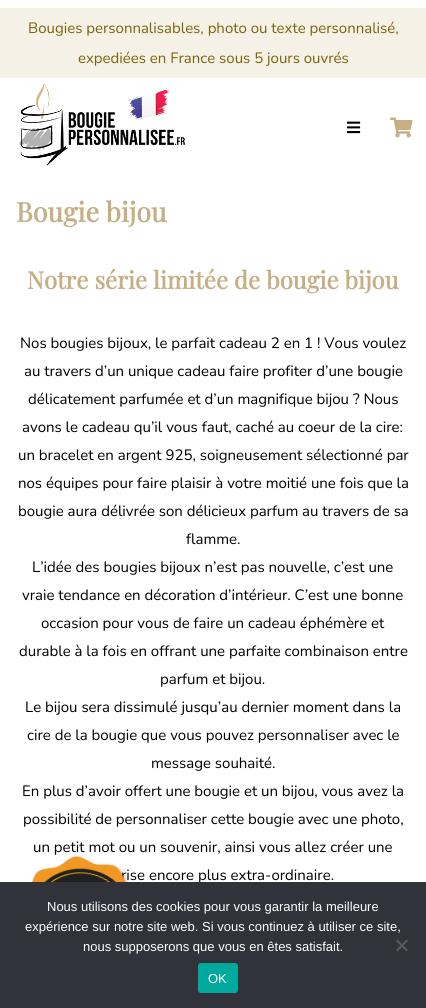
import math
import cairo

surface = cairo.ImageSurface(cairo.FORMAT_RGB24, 426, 1008)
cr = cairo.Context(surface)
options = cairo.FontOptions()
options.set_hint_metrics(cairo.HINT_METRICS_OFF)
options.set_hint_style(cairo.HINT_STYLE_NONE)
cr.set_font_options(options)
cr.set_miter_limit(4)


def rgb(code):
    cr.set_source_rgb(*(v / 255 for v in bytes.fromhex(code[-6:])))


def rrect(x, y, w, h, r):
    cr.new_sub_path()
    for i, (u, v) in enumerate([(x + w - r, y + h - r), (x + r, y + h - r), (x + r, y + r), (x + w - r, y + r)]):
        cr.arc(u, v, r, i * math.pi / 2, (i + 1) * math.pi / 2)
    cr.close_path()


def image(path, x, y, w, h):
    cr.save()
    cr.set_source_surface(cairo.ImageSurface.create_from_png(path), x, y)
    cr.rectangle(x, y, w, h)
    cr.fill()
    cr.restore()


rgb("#ffffff")
cr.paint()
rgb("#f6f1e7")
cr.rectangle(0, 8, 426, 70)
cr.fill()
image("img/1.png", 19, 82, 168, 84)
image("img/2.png", 347, 121, 14, 13)
image("img/3.png", 390, 117, 23, 21)
cr.select_font_face("Nunito")
cr.set_font_size(15)
rgb("#7d610b")
cr.move_to(28, 33)
cr.show_text("Bougies personnalisables, photo ou texte personnalisé,")
cr.move_to(78, 63)
cr.show_text("expediées en France sous 5 jours ouvrés")
cr.select_font_face("Playfair Display", cairo.FONT_SLANT_NORMAL, cairo.FONT_WEIGHT_BOLD)
cr.set_font_size(27)
rgb("#c6af85")
cr.move_to(16, 222)
cr.show_text("Bougie bijou")
cr.set_font_size(24)
cr.move_to(27, 289)
cr.show_text("Notre série limitée de bougie bijou")
cr.select_font_face("Nunito")
cr.set_font_size(15)
rgb("#000000")
for x, y, s in [
    (20, 348, "Nos bougies bijoux, le parfait cadeau 2 en 1 ! Vous voulez"),
    (24, 376, "au travers d’un unique cadeau faire profiter d’une bougie"),
    (28, 404, "délicatement parfumée et d’un magnifique bijou ? Nous"),
    (22, 432, "avons le cadeau qu’il vous faut, caché au coeur de la cire:"),
    (18, 460, "un bracelet en argent 925, soigneusement sélectionné par"),
    (18, 488, "nos équipes pour faire plaisir à votre moitié une fois que la"),
    (18, 516, "bougie aura délivrée son délicieux parfum au travers de sa"),
    (186, 544, "flamme."),
    (32, 572, "L’idée des bougies bijoux n’est pas nouvelle, c’est une"),
    (22, 600, "vraie tendance en décoration d’intérieur. C’est une bonne"),
    (41, 628, "occasion pour vous de faire un cadeau éphémère et"),
    (19, 656, "durable à la fois en offrant une parfaite combinaison entre"),
    (160, 684, "parfum et bijou."),
    (25, 712, "Le bijou sera dissimulé jusqu’au dernier moment dans la"),
    (27, 740, "cire de la bougie que vous pouvez personnaliser avec le"),
    (151, 768, "message souhaité."),
    (22, 796, "En plus d’avoir offert une bougie et un bijou, vous avez la"),
    (23, 824, "possibilité de personnaliser cette bougie avec une photo,"),
    (33, 852, "un petit mot ou un souvenir, ainsi vous allez créer une"),
    (121, 880, "rise encore plus extra-ordinaire."),
]:
    cr.move_to(x, y)
    cr.show_text(s)
image("img/4.png", 31, 855, 98, 27)
rgb("#32323a")
cr.rectangle(0, 882, 426, 126)
cr.fill()
cr.select_font_face("Liberation Sans")
cr.set_font_size(13)
rgb("#ffffff")
for x, y, s in [
    (47, 911, "Nous utilisons des cookies pour vous garantir la meilleure"),
    (25, 931, "expérience sur notre site web. Si vous continuez à utiliser ce site,"),
    (83, 951, "nous supposerons que vous en êtes satisfait."),
]:
    cr.move_to(x, y)
    cr.show_text(s)
rgb("#59595d")
cr.new_path()
cr.move_to(406.5, 939.5)
cr.line_to(408, 941)
cr.line_to(397.5, 951.5)
cr.line_to(396, 950)
cr.close_path()
cr.fill()
cr.new_path()
cr.move_to(396, 941)
cr.line_to(397.5, 939.5)
cr.line_to(408, 950)
cr.line_to(406.5, 951.5)
cr.close_path()
cr.fill()
rgb("#00a99d")
rrect(198, 963, 40, 30, 3)
cr.fill()
rgb("#ffffff")
cr.move_to(208, 983)
cr.show_text("OK")
surface.write_to_png("page.png")
